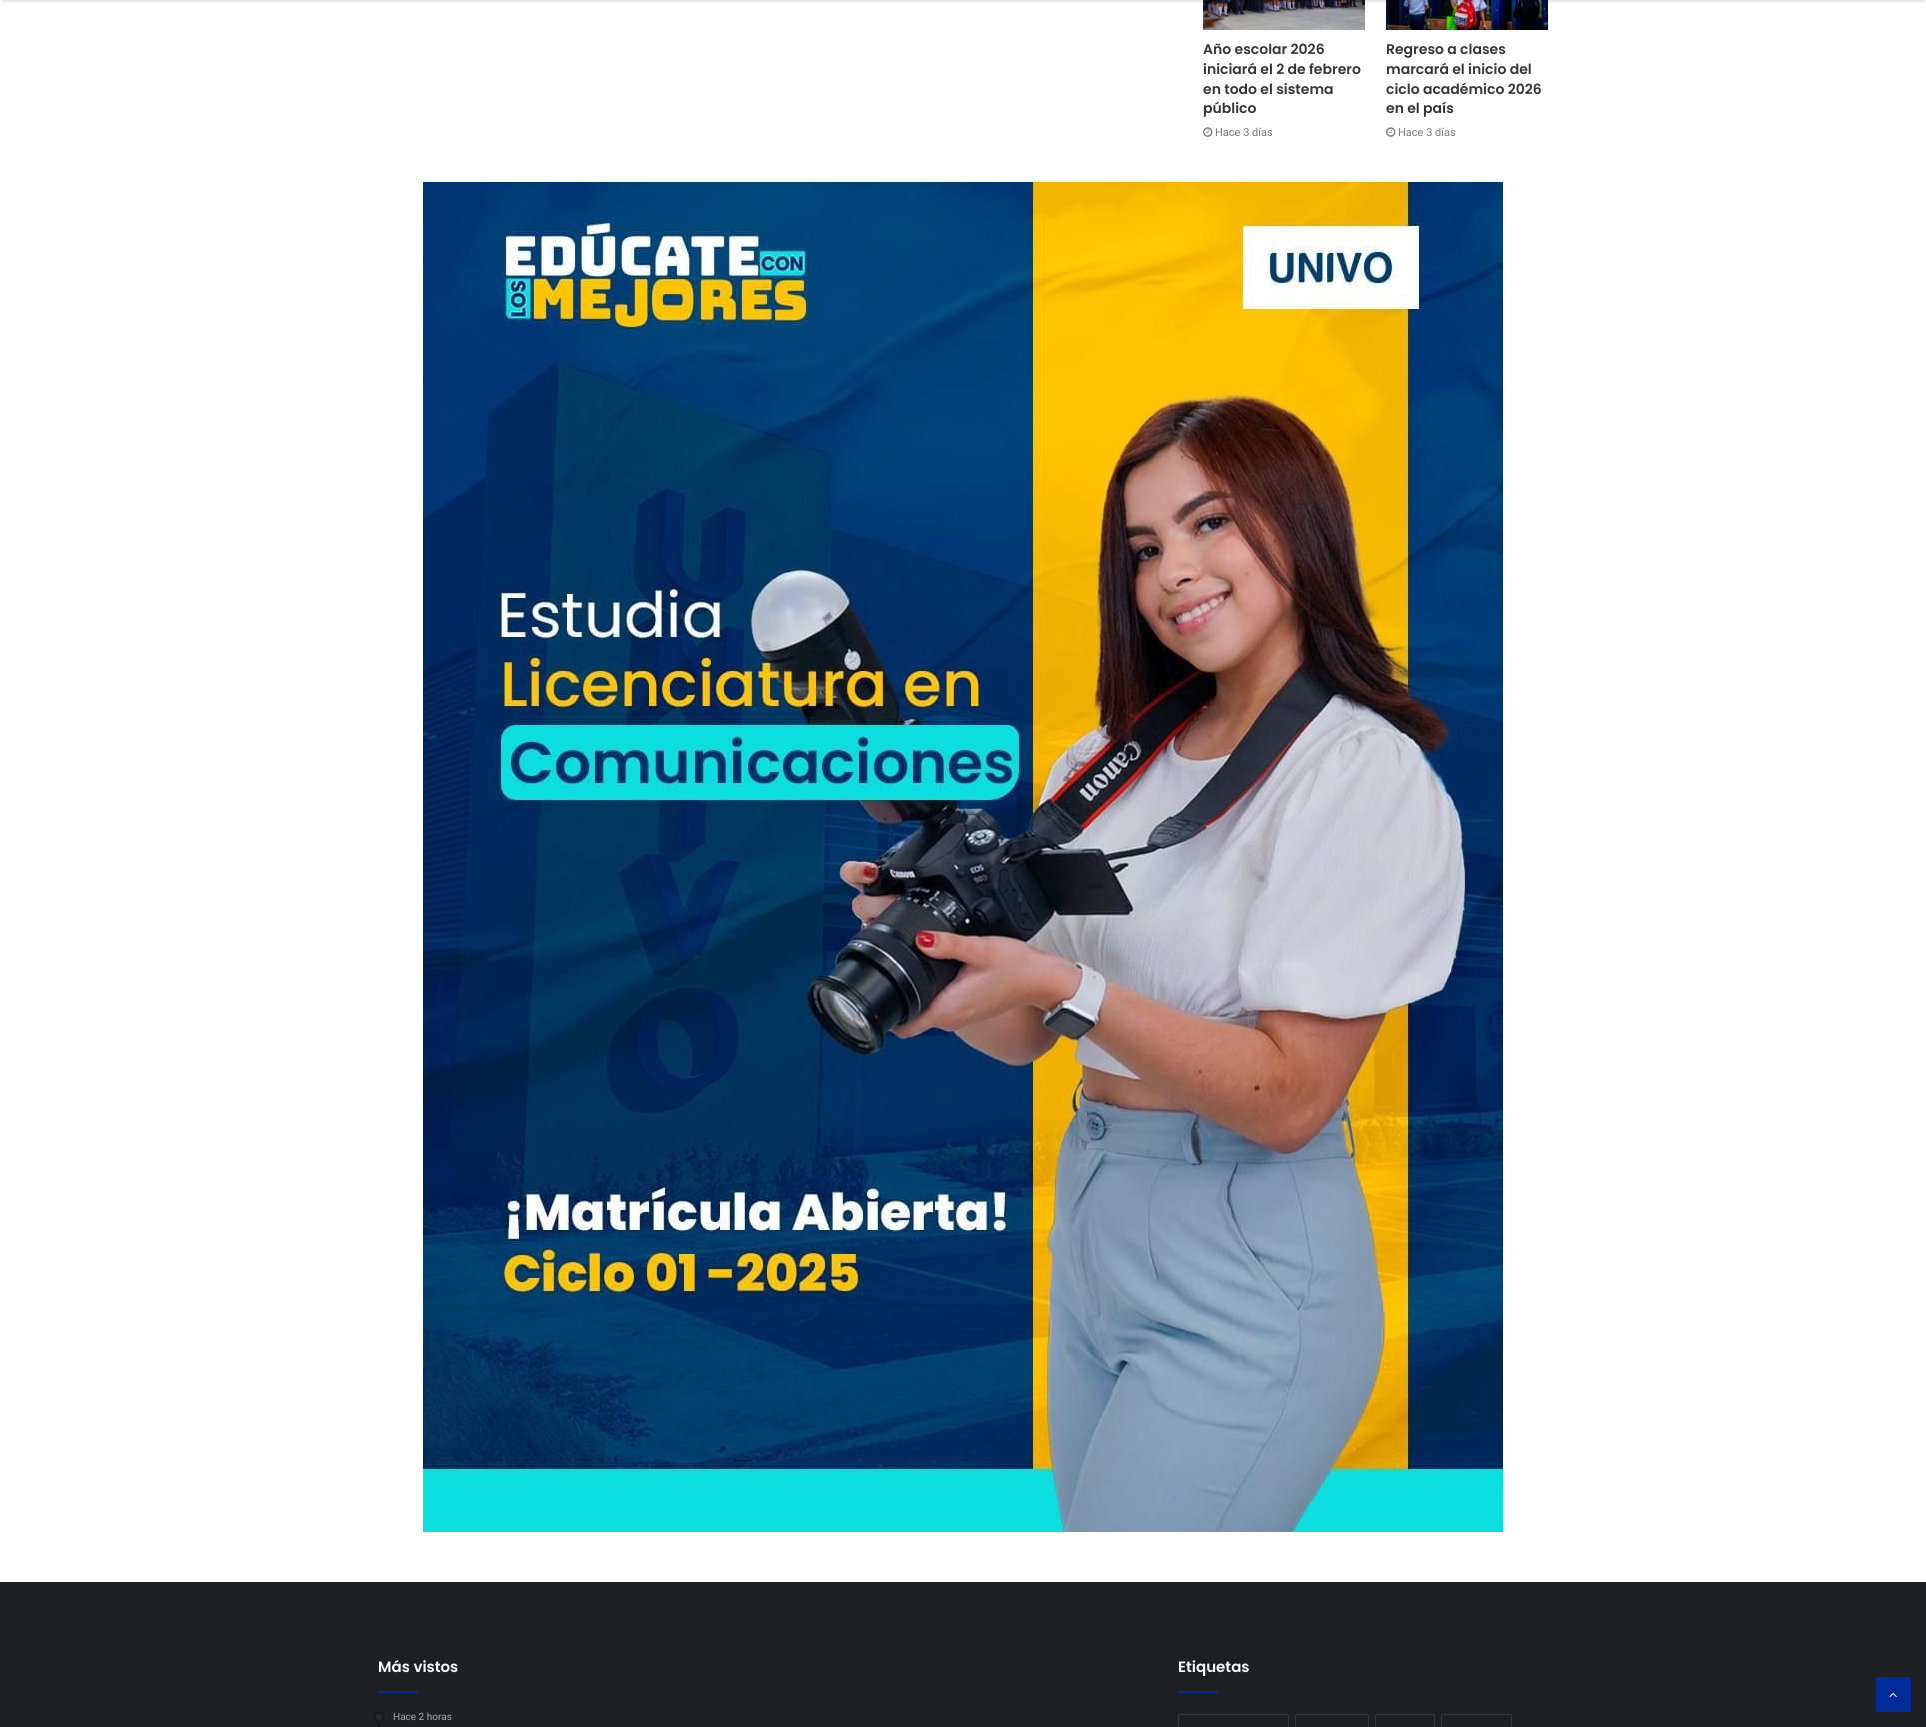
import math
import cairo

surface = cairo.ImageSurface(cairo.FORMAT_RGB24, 1926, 1727)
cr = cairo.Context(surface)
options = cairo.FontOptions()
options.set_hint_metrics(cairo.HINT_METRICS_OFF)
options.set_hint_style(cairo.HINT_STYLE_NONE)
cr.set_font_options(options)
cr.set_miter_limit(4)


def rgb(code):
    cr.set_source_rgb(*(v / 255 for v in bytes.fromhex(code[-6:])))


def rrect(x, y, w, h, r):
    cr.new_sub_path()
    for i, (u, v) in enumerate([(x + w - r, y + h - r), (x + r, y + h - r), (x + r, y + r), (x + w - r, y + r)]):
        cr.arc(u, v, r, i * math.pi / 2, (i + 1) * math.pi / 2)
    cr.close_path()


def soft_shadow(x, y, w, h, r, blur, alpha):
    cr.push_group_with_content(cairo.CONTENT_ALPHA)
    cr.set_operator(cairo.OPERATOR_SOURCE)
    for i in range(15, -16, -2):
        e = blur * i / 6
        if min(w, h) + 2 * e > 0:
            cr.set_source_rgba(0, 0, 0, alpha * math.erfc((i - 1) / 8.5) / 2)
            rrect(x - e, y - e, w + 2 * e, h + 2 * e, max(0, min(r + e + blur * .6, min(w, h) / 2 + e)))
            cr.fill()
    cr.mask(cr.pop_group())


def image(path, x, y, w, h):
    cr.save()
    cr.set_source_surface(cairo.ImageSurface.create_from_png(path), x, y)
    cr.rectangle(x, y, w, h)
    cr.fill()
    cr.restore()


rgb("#ffffff")
cr.paint()
image("img/1.png", 1203, 0, 162, 30)
image("img/3.png", 1386, 0, 162, 30)
rgb("#000000")
soft_shadow(2, -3, 1922, 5, 0, 1, 0.1)
image("img/2.png", 1203, 127, 10, 10)
image("img/2.png", 1386, 127, 10, 10)
image("img/4.png", 423, 182, 1080, 1350)
for x, y, w, h, color in [
    (0, 1582, 1926, 145, "#1f2024"),
    (378, 1691, 40, 2, "#002b97"),
    (378, 1711, 2, 16, "#161619"),
]:
    rgb(color)
    cr.rectangle(x, y, w, h)
    cr.fill()
rgb("#27292d")
cr.arc(379, 1717, 4.5, 0, 2 * math.pi)
cr.fill_preserve()
rgb("#1b1c1f")
cr.set_line_width(3)
cr.stroke()
rgb("#002b97")
cr.rectangle(1178, 1691, 40, 2)
cr.fill()
rrect(1178.5, 1714.5, 110, 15, 1.5)
rgb("#35363a")
cr.set_line_width(1)
cr.stroke()
rrect(1295.5, 1714.5, 73, 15, 1.5)
cr.stroke()
rrect(1375.5, 1714.5, 59, 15, 1.5)
cr.stroke()
rrect(1441.5, 1714.5, 70, 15, 1.5)
cr.stroke()
rgb("#002b98")
cr.rectangle(1876, 1677, 35, 35)
cr.fill()
image("img/5.png", 1889, 1692, 8, 5)
cr.select_font_face("Poppins SemiBold")
cr.set_font_size(14)
rgb("#353535")
for x, y, s in [
    (1203, 54, "Año escolar 2026"),
    (1203, 74, "iniciará el 2 de febrero"),
    (1203, 94, "en todo el sistema"),
    (1203, 113, "público"),
]:
    cr.move_to(x, y)
    cr.show_text(s)
cr.select_font_face("Roboto")
cr.set_font_size(11)
rgb("#777777")
cr.move_to(1215, 136)
cr.show_text("Hace 3 días")
cr.select_font_face("Poppins SemiBold")
cr.set_font_size(14)
rgb("#353535")
for x, y, s in [
    (1386, 54, "Regreso a clases"),
    (1386, 74, "marcará el inicio del"),
    (1386, 94, "ciclo académico 2026"),
    (1386, 113, "en el país"),
]:
    cr.move_to(x, y)
    cr.show_text(s)
cr.select_font_face("Roboto")
cr.set_font_size(11)
rgb("#777777")
cr.move_to(1398, 136)
cr.show_text("Hace 3 días")
cr.select_font_face("Poppins SemiBold")
cr.set_font_size(15)
rgb("#fdfdfd")
cr.move_to(378, 1672)
cr.show_text("Más vistos")
cr.select_font_face("Roboto")
cr.set_font_size(10)
rgb("#a9a9a9")
cr.move_to(393, 1720)
cr.show_text("Hace 2 horas")
cr.select_font_face("Poppins SemiBold")
cr.set_font_size(15)
rgb("#fdfdfd")
cr.move_to(1178, 1672)
cr.show_text("Etiquetas")
surface.write_to_png("page.png")
